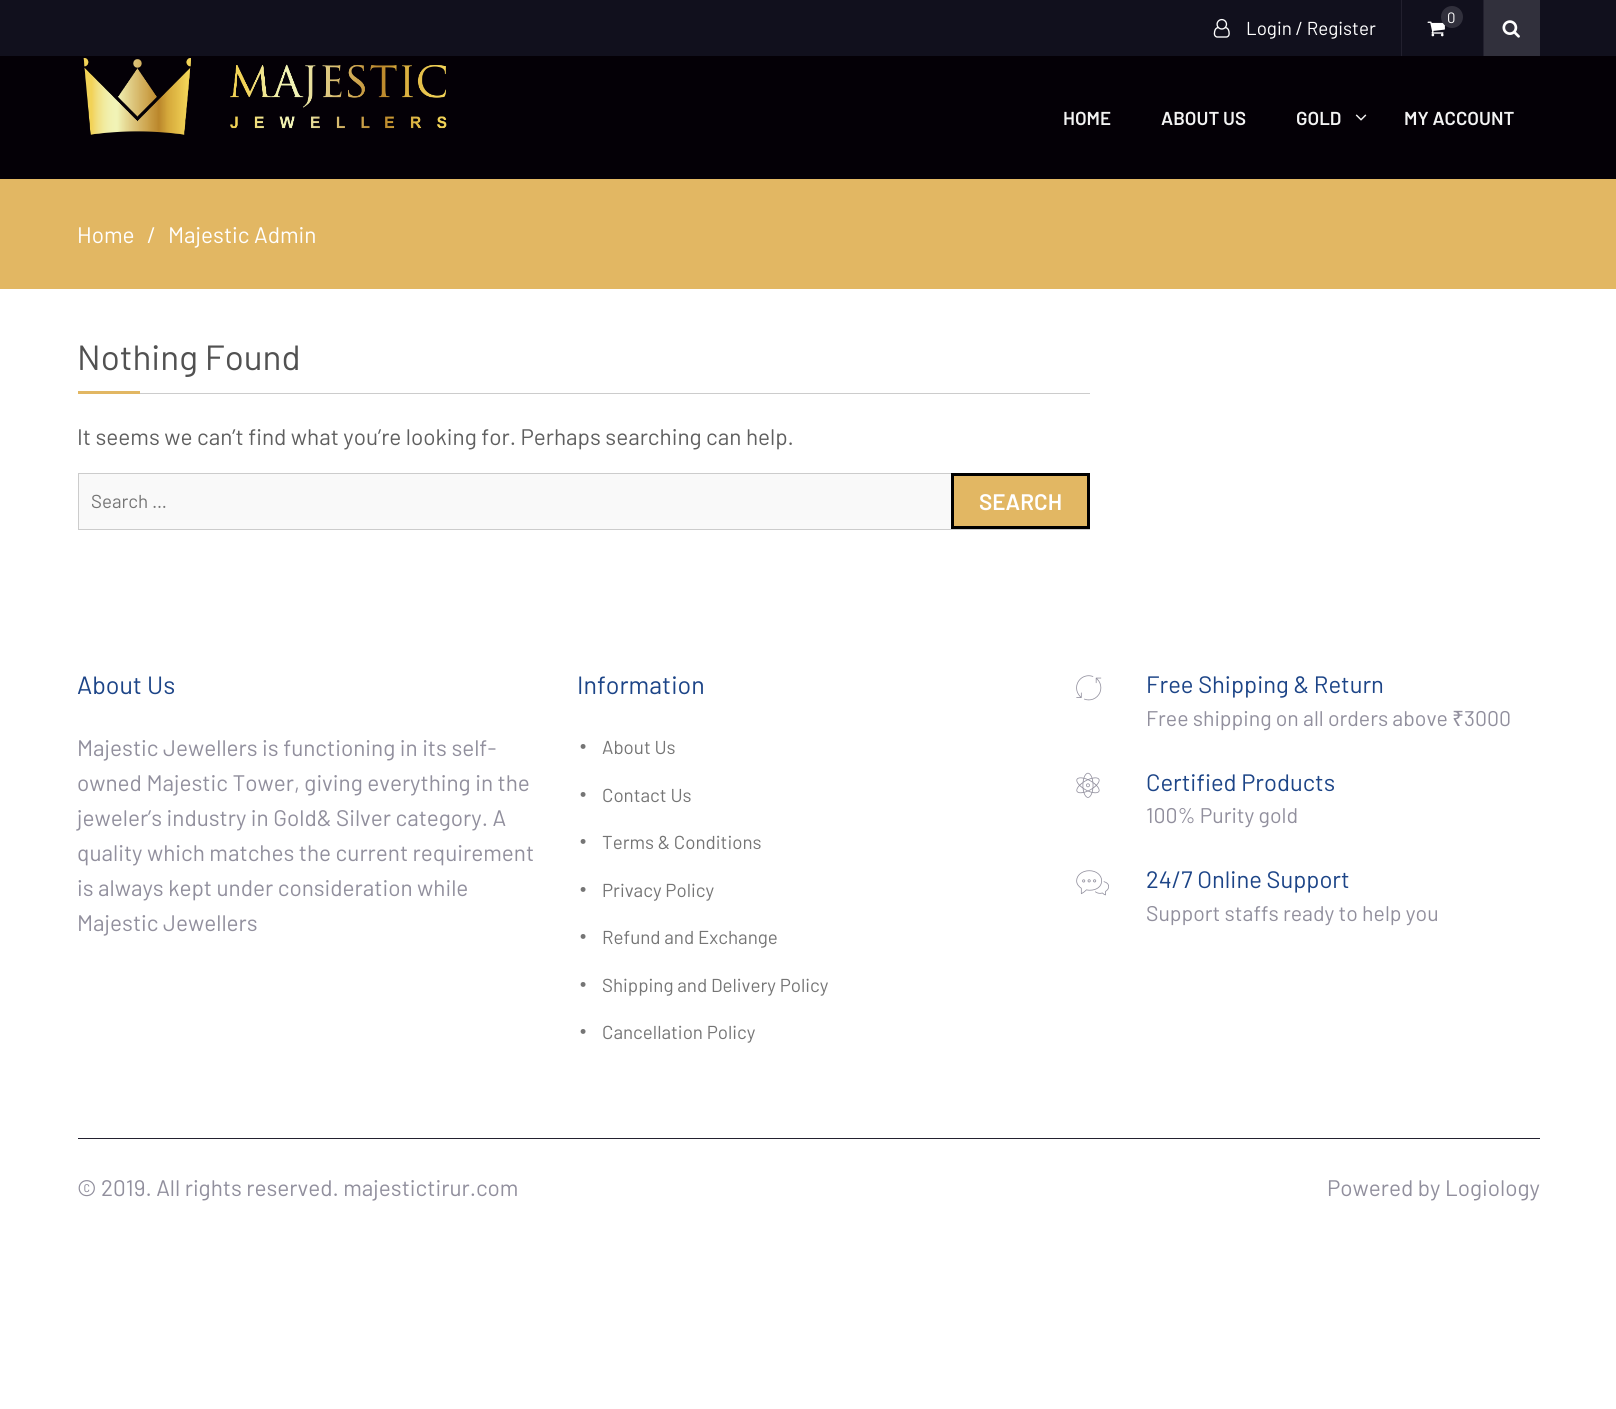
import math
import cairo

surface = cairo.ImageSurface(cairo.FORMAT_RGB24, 1616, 1409)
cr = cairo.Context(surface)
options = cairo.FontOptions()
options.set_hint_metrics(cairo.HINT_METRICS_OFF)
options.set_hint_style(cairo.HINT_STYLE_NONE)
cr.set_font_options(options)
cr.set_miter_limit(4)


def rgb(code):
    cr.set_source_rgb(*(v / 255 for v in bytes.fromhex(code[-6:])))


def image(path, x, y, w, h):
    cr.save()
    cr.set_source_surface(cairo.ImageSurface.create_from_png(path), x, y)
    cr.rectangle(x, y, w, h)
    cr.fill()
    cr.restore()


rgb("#ffffff")
cr.paint()
rgb("#11101d")
cr.rectangle(0, 0, 1616, 56)
cr.fill()
rgb("#22202e")
cr.rectangle(1483, 0, 1, 56)
cr.fill()
image("img/1.png", 1427, 21, 18, 16)
rgb("#31303c")
cr.arc(1452, 17, 11, 0, 2 * math.pi)
cr.fill()
cr.rectangle(1484, 0, 56, 56)
cr.fill()
image("img/2.png", 1502, 20, 18, 18)
rgb("#22202e")
cr.rectangle(1401, 0, 1, 56)
cr.fill()
image("img/3.png", 1213, 18, 17, 20)
rgb("#040006")
cr.rectangle(0, 56, 1616, 123)
cr.fill()
image("img/4.png", 83, 58, 364, 77)
image("img/5.png", 1355, 114, 12, 7)
for x, y, w, h, color in [
    (0, 179, 1616, 110, "#e2b763"),
    (140, 393, 950, 1, "#cccccc"),
    (78, 391, 62, 3, "#e2b763"),
    (79, 474, 872, 55, "#f9f9f9"),
]:
    rgb(color)
    cr.rectangle(x, y, w, h)
    cr.fill()
cr.rectangle(78.5, 473.5, 1011, 56)
rgb("#cccccc")
cr.set_line_width(1)
cr.stroke()
rgb("#e2b763")
cr.rectangle(952.5, 474.5, 136, 53)
cr.fill_preserve()
rgb("#000000")
cr.set_line_width(3)
cr.stroke()
image("img/6.png", 1076, 675, 26, 26)
image("img/7.png", 1076, 772, 24, 26)
image("img/8.png", 1076, 870, 33, 26)
rgb("#23212f")
cr.rectangle(78, 1138, 1462, 1)
cr.fill()
cr.select_font_face("Barlow")
cr.set_font_size(15)
rgb("#ffffff")
cr.move_to(1447, 23)
cr.show_text("0")
cr.set_font_size(18.75)
cr.move_to(1246, 35)
cr.show_text("Login / Register")
cr.select_font_face("Barlow SemiBold")
rgb("#f3f3f3")
for x, y, s in [
    (1063, 125, "HOME"),
    (1161, 125, "ABOUT US"),
    (1296, 125, "GOLD"),
    (1404, 125, "MY ACCOUNT"),
]:
    cr.move_to(x, y)
    cr.show_text(s)
cr.select_font_face("Barlow")
cr.set_font_size(22.5)
rgb("#ffffff")
for x, y, s in [
    (77, 243, "Home"),
    (147, 243, "/"),
    (168, 243, "Majestic Admin"),
]:
    cr.move_to(x, y)
    cr.show_text(s)
cr.set_font_size(35)
rgb("#515151")
cr.move_to(77, 370)
cr.show_text("Nothing Found")
cr.set_font_size(22.5)
rgb("#5f5f5f")
cr.move_to(77, 445)
cr.show_text("It seems we can’t find what you’re looking for. Perhaps searching can help.")
cr.set_font_size(18.75)
rgb("#757575")
cr.move_to(91, 508)
cr.show_text("Search …")
cr.select_font_face("Barlow SemiBold")
cr.set_font_size(22.5)
rgb("#ffffff")
cr.move_to(979, 510)
cr.show_text("SEARCH")
cr.select_font_face("Barlow")
cr.set_font_size(25)
rgb("#1c4487")
cr.move_to(77, 694)
cr.show_text("About Us")
cr.set_font_size(22.5)
rgb("#918f9d")
for x, y, s in [
    (77, 756, "Majestic Jewellers is functioning in its self-"),
    (77, 791, "owned Majestic Tower, giving everything in the"),
    (77, 826, "jeweler’s industry in Gold& Silver category. A"),
    (77, 861, "quality which matches the current requirement"),
    (77, 896, "is always kept under consideration while"),
    (77, 931, "Majestic Jewellers"),
]:
    cr.move_to(x, y)
    cr.show_text(s)
cr.set_font_size(25)
rgb("#1c4487")
cr.move_to(577, 694)
cr.show_text("Information")
cr.set_font_size(44)
rgb("#757575")
cr.move_to(577, 749)
cr.show_text(".")
cr.set_font_size(18.75)
cr.move_to(602, 754)
cr.show_text("About Us")
cr.set_font_size(44)
cr.move_to(577, 797)
cr.show_text(".")
cr.set_font_size(18.75)
cr.move_to(602, 802)
cr.show_text("Contact Us")
cr.set_font_size(44)
cr.move_to(577, 844)
cr.show_text(".")
cr.set_font_size(18.75)
cr.move_to(602, 849)
cr.show_text("Terms & Conditions")
cr.set_font_size(44)
cr.move_to(577, 892)
cr.show_text(".")
cr.set_font_size(18.75)
cr.move_to(602, 897)
cr.show_text("Privacy Policy")
cr.set_font_size(44)
cr.move_to(577, 939)
cr.show_text(".")
cr.set_font_size(18.75)
cr.move_to(602, 944)
cr.show_text("Refund and Exchange")
cr.set_font_size(44)
cr.move_to(577, 987)
cr.show_text(".")
cr.set_font_size(18.75)
cr.move_to(602, 992)
cr.show_text("Shipping and Delivery Policy")
cr.set_font_size(44)
cr.move_to(577, 1034)
cr.show_text(".")
cr.set_font_size(18.75)
cr.move_to(602, 1039)
cr.show_text("Cancellation Policy")
cr.set_font_size(23.75)
rgb("#1c4487")
cr.move_to(1146, 693)
cr.show_text("Free Shipping & Return")
cr.set_font_size(21.25)
rgb("#918f9d")
cr.move_to(1146, 726)
cr.show_text("Free shipping on all orders above")
cr.select_font_face("Noto Sans")
cr.move_to(1452, 726)
cr.show_text("₹")
cr.select_font_face("Barlow")
cr.move_to(1464, 726)
cr.show_text("3000")
cr.set_font_size(23.75)
rgb("#1c4487")
cr.move_to(1146, 791)
cr.show_text("Certified Products")
cr.set_font_size(21.25)
rgb("#918f9d")
cr.move_to(1146, 823)
cr.show_text("100% Purity gold")
cr.set_font_size(23.75)
rgb("#1c4487")
cr.move_to(1146, 888)
cr.show_text("24/7 Online Support")
cr.set_font_size(21.25)
rgb("#918f9d")
cr.move_to(1146, 921)
cr.show_text("Support staffs ready to help you")
cr.set_font_size(22.5)
cr.move_to(77, 1196)
cr.show_text("© 2019. All rights reserved. majestictirur.com")
cr.move_to(1327, 1196)
cr.show_text("Powered by Logiology")
surface.write_to_png("page.png")
